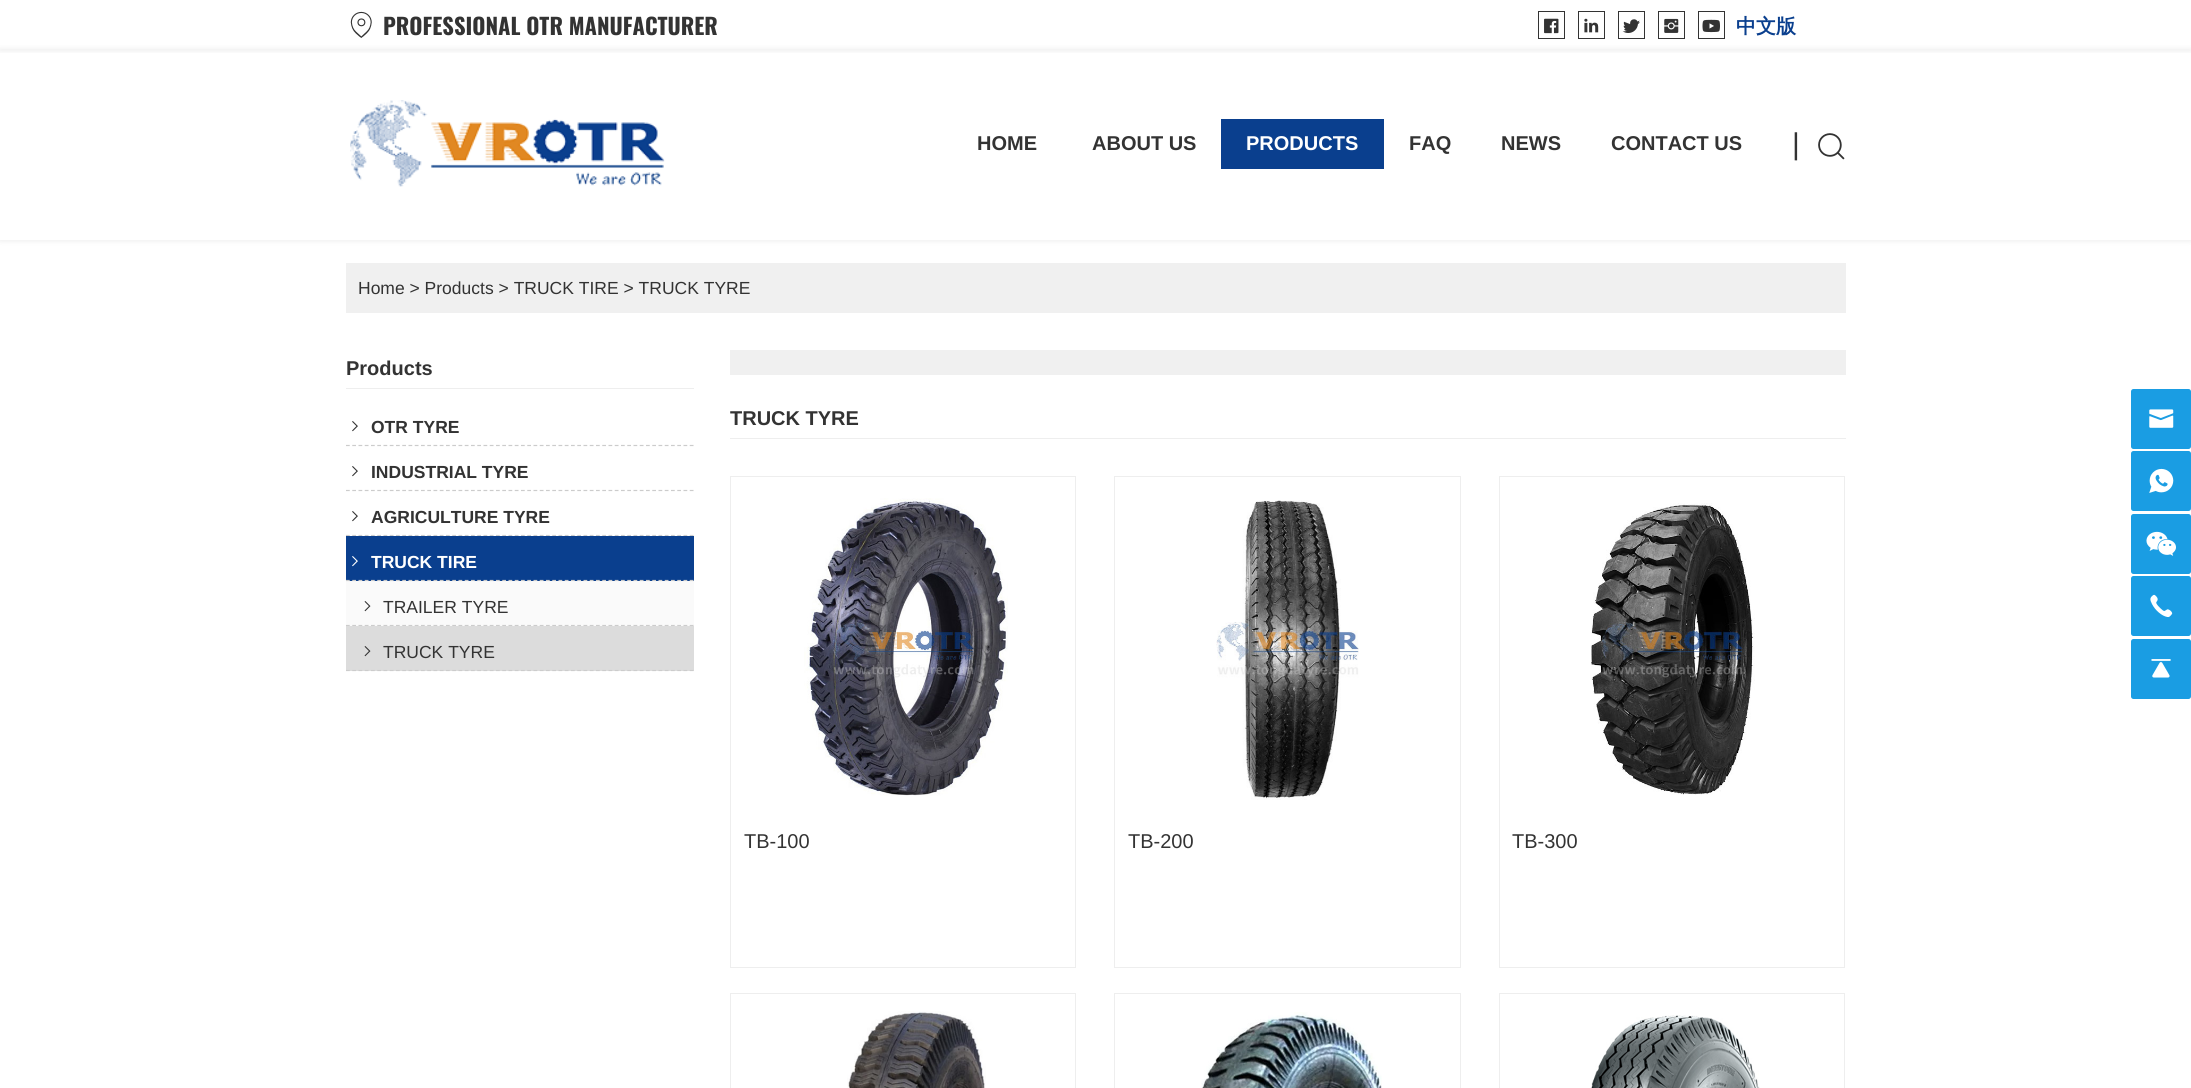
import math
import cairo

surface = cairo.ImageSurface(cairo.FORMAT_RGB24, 2191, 1088)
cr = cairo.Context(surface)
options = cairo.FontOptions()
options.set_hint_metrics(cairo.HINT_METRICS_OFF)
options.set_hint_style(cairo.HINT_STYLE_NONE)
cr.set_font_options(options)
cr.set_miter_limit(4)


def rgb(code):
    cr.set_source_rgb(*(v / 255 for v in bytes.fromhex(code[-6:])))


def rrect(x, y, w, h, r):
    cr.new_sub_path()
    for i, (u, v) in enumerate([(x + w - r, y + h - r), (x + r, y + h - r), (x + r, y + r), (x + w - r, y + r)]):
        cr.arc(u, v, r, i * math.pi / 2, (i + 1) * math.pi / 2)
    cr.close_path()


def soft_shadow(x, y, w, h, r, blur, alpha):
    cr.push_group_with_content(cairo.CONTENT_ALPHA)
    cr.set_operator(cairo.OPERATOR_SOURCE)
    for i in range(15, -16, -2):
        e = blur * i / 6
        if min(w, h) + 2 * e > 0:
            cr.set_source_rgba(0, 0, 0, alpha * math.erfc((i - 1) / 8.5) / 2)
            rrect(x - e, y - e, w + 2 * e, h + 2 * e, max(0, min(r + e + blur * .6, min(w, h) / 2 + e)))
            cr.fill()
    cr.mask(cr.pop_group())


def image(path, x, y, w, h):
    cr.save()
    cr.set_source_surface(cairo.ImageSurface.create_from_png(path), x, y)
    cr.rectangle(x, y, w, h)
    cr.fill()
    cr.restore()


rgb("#ffffff")
cr.paint()
cr.save()
cr.rectangle(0, 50, 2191, 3)
cr.clip()
rgb("#000000")
soft_shadow(0, 0, 2191, 50, 0, 3, 0.1)
cr.restore()
image("img/1.png", 350, 11, 22, 27)
cr.rectangle(1538.5, 11.5, 26, 27)
rgb("#333333")
cr.set_line_width(1)
cr.stroke()
image("img/2.png", 1544, 18, 15, 16)
cr.rectangle(1578.5, 11.5, 26, 27)
cr.stroke()
image("img/3.png", 1584, 18, 15, 15)
cr.rectangle(1618.5, 11.5, 26, 27)
cr.stroke()
image("img/4.png", 1622, 19, 18, 14)
cr.rectangle(1658.5, 11.5, 26, 27)
cr.stroke()
image("img/5.png", 1664, 18, 15, 15)
cr.rectangle(1698.5, 11.5, 26, 27)
cr.stroke()
image("img/6.png", 1702, 19, 18, 14)
cr.save()
cr.set_fill_rule(cairo.FILL_RULE_EVEN_ODD)
cr.new_path()
cr.move_to(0, 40)
cr.line_to(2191, 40)
cr.line_to(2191, 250)
cr.line_to(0, 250)
cr.close_path()
cr.move_to(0, 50)
cr.line_to(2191, 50)
cr.line_to(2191, 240)
cr.line_to(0, 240)
cr.close_path()
cr.clip()
rgb("#000000")
soft_shadow(0, 50, 2191, 190, 0, 3, 0.1)
cr.restore()
image("img/7.png", 350, 100, 315, 87)
rgb("#0a3f8e")
cr.rectangle(1221, 119, 163, 50)
cr.fill()
image("img/8.png", 1818, 133, 27, 27)
rgb("#f0f0f0")
cr.rectangle(346, 263, 1500, 50)
cr.fill()
rgb("#eeeeee")
cr.rectangle(346, 388, 348, 1)
cr.fill()
cr.new_path()
cr.move_to(346, 445.5)
cr.line_to(694, 445.5)
rgb("#cccccc")
cr.set_line_width(1.2)
cr.set_dash([3.75, 2.5])
cr.stroke()
image("img/9.png", 352, 421, 6, 11)
cr.new_path()
cr.move_to(346, 490.5)
cr.line_to(694, 490.5)
cr.stroke()
image("img/9.png", 352, 466, 6, 11)
cr.new_path()
cr.move_to(346, 535.5)
cr.line_to(694, 535.5)
cr.stroke()
image("img/9.png", 352, 511, 6, 11)
rgb("#0a3f8e")
cr.rectangle(346, 536, 348, 45)
cr.fill()
rgb("#fafafa")
cr.rectangle(346, 581, 348, 45)
cr.fill()
cr.new_path()
cr.move_to(346, 580.5)
cr.line_to(694, 580.5)
rgb("#cccccc")
cr.stroke()
image("img/10.png", 352, 556, 6, 11)
cr.new_path()
cr.move_to(346, 625.5)
cr.line_to(694, 625.5)
cr.stroke()
image("img/11.png", 364, 601, 7, 11)
rgb("#dcdcdc")
cr.rectangle(346, 626, 348, 45)
cr.fill()
cr.new_path()
cr.move_to(346, 670.5)
cr.line_to(694, 670.5)
rgb("#cccccc")
cr.stroke()
image("img/12.png", 364, 646, 7, 11)
rgb("#f0f0f0")
cr.rectangle(730, 350, 1116, 25)
cr.fill()
rgb("#eeeeee")
cr.rectangle(730, 438, 1116, 1)
cr.fill()
cr.rectangle(730.5, 476.5, 345, 491)
cr.set_line_width(1)
cr.set_dash([])
cr.stroke()
image("img/13.png", 804, 498, 204, 298)
cr.rectangle(1114.5, 476.5, 346, 491)
cr.stroke()
image("img/14.png", 1216, 500, 143, 300)
cr.rectangle(1499.5, 476.5, 345, 491)
cr.stroke()
image("img/15.png", 1591, 503, 164, 292)
cr.rectangle(730.5, 993.5, 345, 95)
cr.stroke()
image("img/16.png", 847, 1011, 139, 77)
cr.rectangle(1114.5, 993.5, 346, 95)
cr.stroke()
image("img/17.png", 1201, 1012, 181, 76)
cr.rectangle(1499.5, 993.5, 345, 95)
cr.stroke()
image("img/18.png", 1591, 1015, 169, 73)
rgb("#1a9de3")
rrect(2131, 389, 60, 60, 2.5)
cr.fill()
image("img/19.png", 2149, 409, 25, 19)
rrect(2131, 451, 60, 60, 2.5)
cr.fill()
image("img/20.png", 2149, 468, 25, 25)
rrect(2131, 514, 60, 60, 2.5)
cr.fill()
image("img/21.png", 2146, 531, 30, 25)
rrect(2131, 576, 60, 60, 2.5)
cr.fill()
image("img/22.png", 2150, 594, 23, 24)
rrect(2131, 639, 60, 60, 2.5)
cr.fill()
image("img/23.png", 2151, 659, 20, 19)
cr.select_font_face("Oswald", cairo.FONT_SLANT_NORMAL, cairo.FONT_WEIGHT_BOLD)
cr.set_font_size(22.5)
rgb("#333333")
cr.move_to(383, 35)
cr.show_text("PROFESSIONAL OTR MANUFACTURER")
cr.select_font_face("WenQuanYi Zen Hei", cairo.FONT_SLANT_NORMAL, cairo.FONT_WEIGHT_BOLD)
cr.set_font_size(20)
rgb("#0a3f8e")
cr.move_to(1736, 33)
cr.show_text("中文版")
cr.select_font_face("Liberation Sans", cairo.FONT_SLANT_NORMAL, cairo.FONT_WEIGHT_BOLD)
rgb("#333333")
cr.move_to(977, 150)
cr.show_text("HOME")
cr.move_to(1092, 150)
cr.show_text("ABOUT US")
rgb("#ffffff")
cr.move_to(1246, 150)
cr.show_text("PRODUCTS")
rgb("#333333")
for x, y, s in [
    (1409, 150, "FAQ"),
    (1501, 150, "NEWS"),
    (1611, 150, "CONTACT US"),
]:
    cr.move_to(x, y)
    cr.show_text(s)
cr.select_font_face("Liberation Sans")
cr.set_font_size(30)
cr.move_to(1792, 154)
cr.show_text("|")
cr.set_font_size(17.5)
cr.move_to(358, 294)
cr.show_text("Home > Products > TRUCK TIRE > TRUCK TYRE")
cr.select_font_face("Liberation Sans", cairo.FONT_SLANT_NORMAL, cairo.FONT_WEIGHT_BOLD)
cr.set_font_size(20)
cr.move_to(346, 375)
cr.show_text("Products")
cr.set_font_size(17.5)
for x, y, s in [
    (371, 433, "OTR TYRE"),
    (371, 478, "INDUSTRIAL TYRE"),
    (371, 523, "AGRICULTURE TYRE"),
]:
    cr.move_to(x, y)
    cr.show_text(s)
rgb("#ffffff")
cr.move_to(371, 568)
cr.show_text("TRUCK TIRE")
cr.select_font_face("Liberation Sans")
rgb("#333333")
cr.move_to(383, 613)
cr.show_text("TRAILER TYRE")
cr.move_to(383, 658)
cr.show_text("TRUCK TYRE")
cr.select_font_face("Liberation Sans", cairo.FONT_SLANT_NORMAL, cairo.FONT_WEIGHT_BOLD)
cr.set_font_size(20)
cr.move_to(730, 425)
cr.show_text("TRUCK TYRE")
cr.select_font_face("Liberation Sans")
for x, y, s in [
    (744, 848, "TB-100"),
    (1128, 848, "TB-200"),
    (1512, 848, "TB-300"),
]:
    cr.move_to(x, y)
    cr.show_text(s)
surface.write_to_png("page.png")
